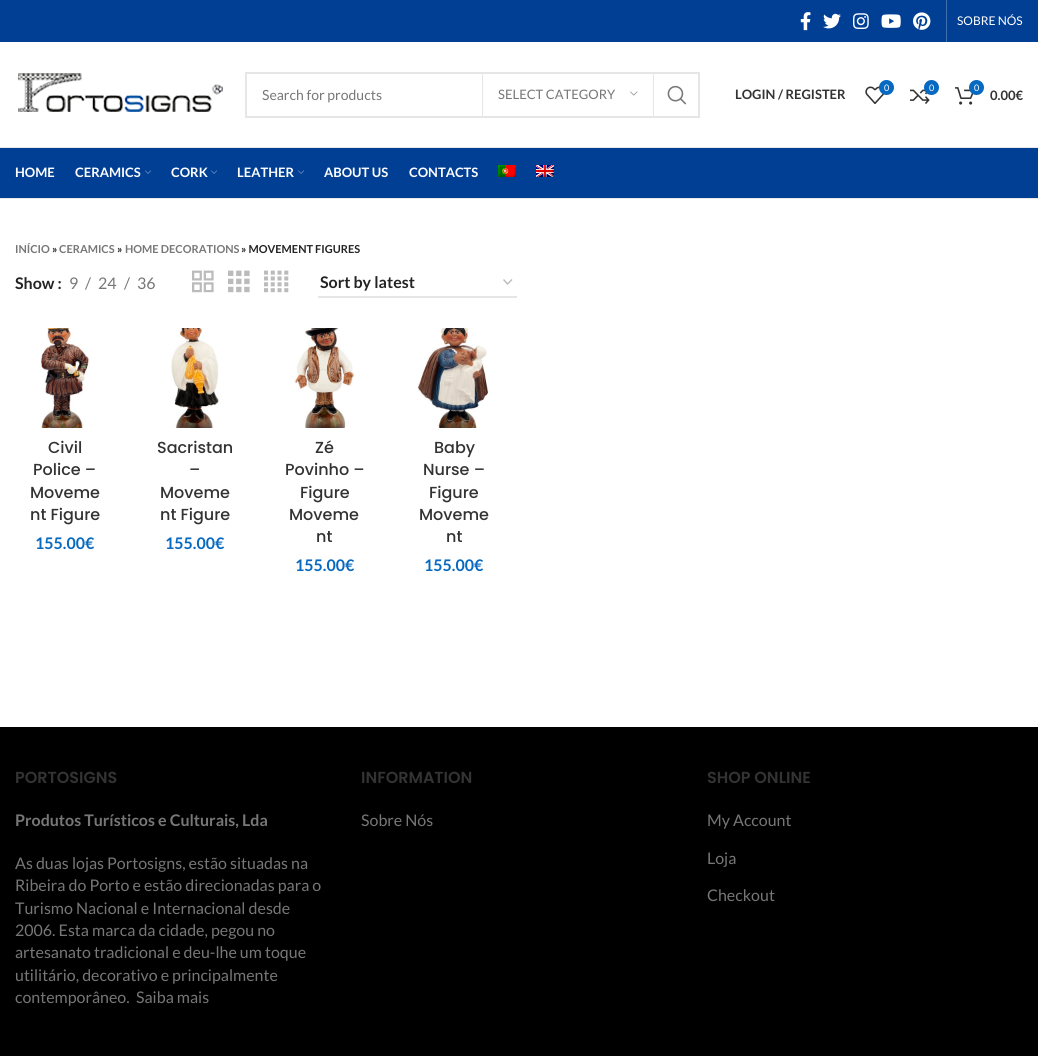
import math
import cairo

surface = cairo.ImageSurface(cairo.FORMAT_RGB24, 1038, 1056)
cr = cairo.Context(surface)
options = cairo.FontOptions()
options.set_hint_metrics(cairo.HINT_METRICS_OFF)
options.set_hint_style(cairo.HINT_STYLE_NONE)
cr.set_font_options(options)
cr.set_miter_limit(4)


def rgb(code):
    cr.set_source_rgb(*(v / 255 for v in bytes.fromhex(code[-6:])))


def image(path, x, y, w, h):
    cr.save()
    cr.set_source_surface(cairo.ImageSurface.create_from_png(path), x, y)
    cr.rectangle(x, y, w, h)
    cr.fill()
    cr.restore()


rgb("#ffffff")
cr.paint()
rgb("#003f94")
cr.rectangle(0, 0, 1038, 42)
cr.fill()
image("img/1.png", 800, 12, 11, 19)
image("img/2.png", 823, 13, 18, 16)
image("img/3.png", 853, 13, 16, 16)
image("img/4.png", 881, 14, 20, 14)
image("img/5.png", 913, 12, 18, 18)
rgb("#406faf")
cr.rectangle(946, 0, 1, 42)
cr.fill()
rgb("#e8e8e8")
cr.rectangle(0, 147, 1038, 1)
cr.fill()
image("img/6.png", 18, 73, 205, 39)
cr.rectangle(246, 73, 453, 44)
rgb("#e6e6e6")
cr.stroke()
cr.rectangle(653, 74, 1, 42)
cr.fill()
cr.rectangle(482, 74, 1, 42)
cr.fill()
image("img/7.png", 630, 91, 8, 5)
image("img/8.png", 667, 85, 20, 20)
image("img/9.png", 865, 86, 20, 18)
rgb("#0769bf")
cr.arc(886.5, 87.5, 7.5, 0, 2 * math.pi)
cr.fill()
image("img/10.png", 910, 89, 20, 15)
cr.arc(931.5, 87.5, 7.5, 0, 2 * math.pi)
cr.fill()
image("img/11.png", 955, 87, 19, 18)
cr.arc(976.5, 87.5, 7.5, 0, 2 * math.pi)
cr.fill()
rgb("#003f94")
cr.rectangle(0, 148, 1038, 50)
cr.fill()
rgb("#e8e8e8")
cr.rectangle(0, 198, 1038, 1)
cr.fill()
image("img/12.png", 145, 170, 6, 4)
image("img/12.png", 211, 170, 6, 4)
image("img/12.png", 298, 170, 6, 4)
image("img/13.png", 498, 165, 18, 12)
image("img/14.png", 536, 165, 18, 12)
image("img/15.png", 192, 270, 22, 23)
image("img/16.png", 228, 270, 22, 23)
image("img/17.png", 264, 270, 25, 23)
cr.new_path()
cr.move_to(503.5, 279.5)
cr.line_to(507.5, 284)
cr.line_to(512, 279.5)
rgb("#bbbbbb")
cr.set_line_width(1.4)
cr.stroke()
rgb("#e6e6e6")
cr.rectangle(318, 296, 199, 2)
cr.fill()
image("img/18.png", 40, 328, 50, 100)
image("img/19.png", 171, 328, 48, 100)
image("img/20.png", 294, 328, 60, 100)
image("img/21.png", 417, 328, 72, 100)
rgb("#000000")
cr.rectangle(0, 727, 1038, 329)
cr.fill()
cr.select_font_face("Lato")
cr.set_font_size(12)
rgb("#ffffff")
cr.move_to(957, 25)
cr.show_text("SOBRE NÓS")
cr.set_font_size(14)
rgb("#777777")
cr.move_to(262, 100)
cr.show_text("Search for products")
cr.set_font_size(13)
cr.move_to(498, 99)
cr.show_text("SELECT CATEGORY")
cr.select_font_face("Lato", cairo.FONT_SLANT_NORMAL, cairo.FONT_WEIGHT_BOLD)
rgb("#333333")
cr.move_to(735, 99)
cr.show_text("LOGIN / REGISTER")
cr.select_font_face("Lato")
cr.set_font_size(9)
rgb("#ffffff")
for x, y, s in [
    (884, 91, "0"),
    (929, 91, "0"),
    (974, 91, "0"),
]:
    cr.move_to(x, y)
    cr.show_text(s)
cr.select_font_face("Lato", cairo.FONT_SLANT_NORMAL, cairo.FONT_WEIGHT_BOLD)
cr.set_font_size(13)
rgb("#333333")
cr.move_to(990, 100)
cr.show_text("0.00€")
rgb("#ffffff")
for x, y, s in [
    (15, 177, "HOME"),
    (75, 177, "CERAMICS"),
    (171, 177, "CORK"),
    (237, 177, "LEATHER"),
    (324, 177, "ABOUT US"),
    (409, 177, "CONTACTS"),
]:
    cr.move_to(x, y)
    cr.show_text(s)
cr.set_font_size(11)
rgb("#777777")
cr.move_to(15, 253)
cr.show_text("INÍCIO")
rgb("#242424")
cr.move_to(52, 253)
cr.show_text("»")
rgb("#777777")
cr.move_to(59, 253)
cr.show_text("CERAMICS")
rgb("#242424")
cr.move_to(117, 253)
cr.show_text("»")
rgb("#777777")
cr.move_to(125, 253)
cr.show_text("HOME DECORATIONS")
rgb("#242424")
cr.move_to(241, 253)
cr.show_text("» MOVEMENT FIGURES")
cr.set_font_size(16)
cr.move_to(15, 289)
cr.show_text("Show :")
cr.select_font_face("Lato")
rgb("#777777")
for x, y, s in [
    (69, 289, "9"),
    (85, 289, "/"),
    (98, 289, "24"),
    (124, 289, "/"),
    (137, 289, "36"),
]:
    cr.move_to(x, y)
    cr.show_text(s)
cr.select_font_face("Lato", cairo.FONT_SLANT_NORMAL, cairo.FONT_WEIGHT_BOLD)
rgb("#242424")
cr.move_to(320, 288)
cr.show_text("Sort by latest")
cr.select_font_face("Poppins Medium")
rgb("#333333")
for x, y, s in [
    (48, 453, "Civil"),
    (33, 475, "Police –"),
    (30, 498, "Moveme"),
    (30, 520, "nt Figure"),
]:
    cr.move_to(x, y)
    cr.show_text(s)
cr.select_font_face("Lato", cairo.FONT_SLANT_NORMAL, cairo.FONT_WEIGHT_BOLD)
rgb("#0769bf")
cr.move_to(35, 549)
cr.show_text("155.00€")
cr.select_font_face("Poppins Medium")
rgb("#333333")
for x, y, s in [
    (157, 453, "Sacristan"),
    (189, 475, "–"),
    (160, 498, "Moveme"),
    (160, 520, "nt Figure"),
]:
    cr.move_to(x, y)
    cr.show_text(s)
cr.select_font_face("Lato", cairo.FONT_SLANT_NORMAL, cairo.FONT_WEIGHT_BOLD)
rgb("#0769bf")
cr.move_to(165, 549)
cr.show_text("155.00€")
cr.select_font_face("Poppins Medium")
rgb("#333333")
for x, y, s in [
    (315, 453, "Zé"),
    (285, 475, "Povinho –"),
    (300, 498, "Figure"),
    (289, 520, "Moveme"),
    (316, 542, "nt"),
]:
    cr.move_to(x, y)
    cr.show_text(s)
cr.select_font_face("Lato", cairo.FONT_SLANT_NORMAL, cairo.FONT_WEIGHT_BOLD)
rgb("#0769bf")
cr.move_to(295, 571)
cr.show_text("155.00€")
cr.select_font_face("Poppins Medium")
rgb("#333333")
for x, y, s in [
    (434, 453, "Baby"),
    (423, 475, "Nurse –"),
    (429, 498, "Figure"),
    (419, 520, "Moveme"),
    (446, 542, "nt"),
]:
    cr.move_to(x, y)
    cr.show_text(s)
cr.select_font_face("Lato", cairo.FONT_SLANT_NORMAL, cairo.FONT_WEIGHT_BOLD)
rgb("#0769bf")
cr.move_to(424, 571)
cr.show_text("155.00€")
cr.select_font_face("Poppins SemiBold")
rgb("#333333")
cr.move_to(15, 783)
cr.show_text("PORTOSIGNS")
cr.select_font_face("Lato", cairo.FONT_SLANT_NORMAL, cairo.FONT_WEIGHT_BOLD)
rgb("#777777")
cr.move_to(15, 826)
cr.show_text("Produtos Turísticos e Culturais, Lda")
cr.select_font_face("Lato")
for x, y, s in [
    (15, 869, "As duas lojas Portosigns, estão situadas na"),
    (15, 891, "Ribeira do Porto e estão direcionadas para o"),
    (15, 914, "Turismo Nacional e Internacional desde"),
    (15, 936, "2006. Esta marca da cidade, pegou no"),
    (15, 958, "artesanato tradicional e deu-lhe um toque"),
    (15, 981, "utilitário, decorativo e principalmente"),
    (15, 1003, "contemporâneo."),
    (136, 1003, "Saiba mais"),
]:
    cr.move_to(x, y)
    cr.show_text(s)
cr.select_font_face("Poppins SemiBold")
rgb("#333333")
cr.move_to(361, 783)
cr.show_text("INFORMATION")
cr.select_font_face("Lato")
rgb("#777777")
cr.move_to(361, 826)
cr.show_text("Sobre Nós")
cr.select_font_face("Poppins SemiBold")
rgb("#333333")
cr.move_to(707, 783)
cr.show_text("SHOP ONLINE")
cr.select_font_face("Lato")
rgb("#777777")
for x, y, s in [
    (707, 826, "My Account"),
    (707, 864, "Loja"),
    (707, 901, "Checkout"),
]:
    cr.move_to(x, y)
    cr.show_text(s)
surface.write_to_png("page.png")
